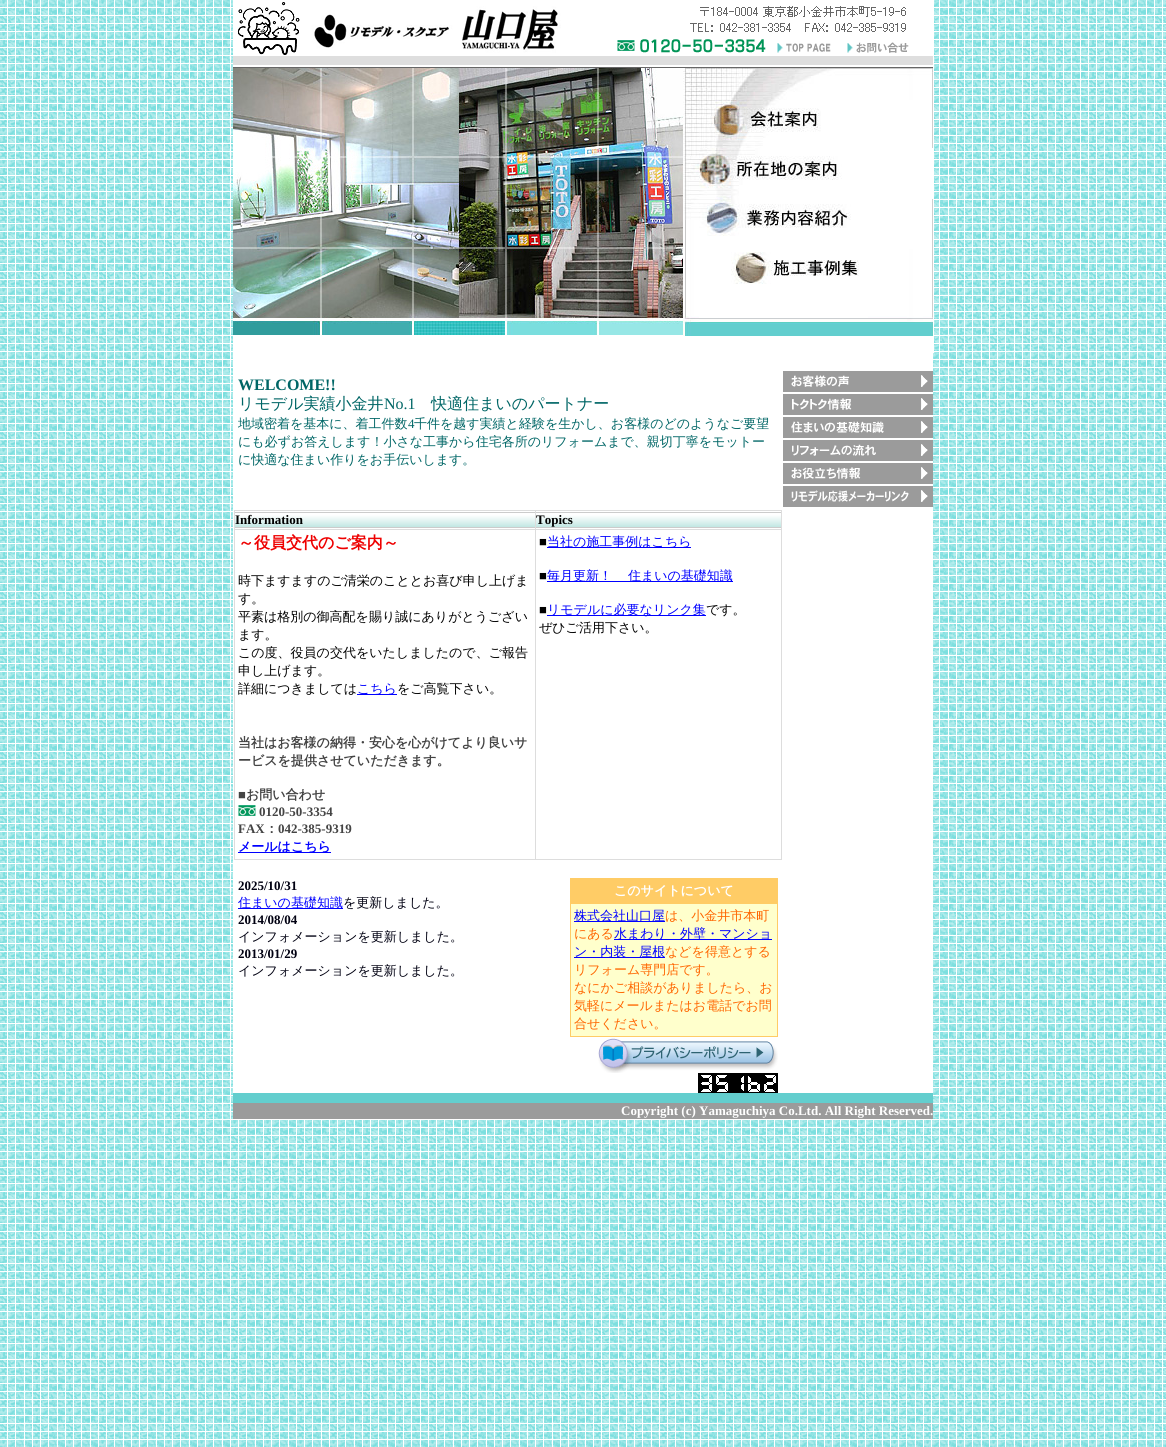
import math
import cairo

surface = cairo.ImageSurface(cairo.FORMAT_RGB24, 1166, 1447)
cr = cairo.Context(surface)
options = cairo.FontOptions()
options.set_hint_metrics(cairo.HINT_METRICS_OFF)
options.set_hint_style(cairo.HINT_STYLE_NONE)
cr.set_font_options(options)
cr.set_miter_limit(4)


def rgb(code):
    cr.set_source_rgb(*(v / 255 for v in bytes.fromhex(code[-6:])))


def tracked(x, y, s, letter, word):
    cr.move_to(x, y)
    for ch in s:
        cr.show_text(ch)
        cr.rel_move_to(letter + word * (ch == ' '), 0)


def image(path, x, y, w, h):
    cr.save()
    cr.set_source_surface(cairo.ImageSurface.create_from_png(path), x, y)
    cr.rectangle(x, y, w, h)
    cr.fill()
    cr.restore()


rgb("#ffffff")
cr.paint()
image("img/1.png", 0, 0, 1166, 1447)
rgb("#ffffff")
cr.rectangle(233, 0, 701, 68)
cr.fill()
image("img/2.png", 237, 2, 315, 46)
image("img/3.png", 552, 6, 354, 32)
image("img/4.png", 552, 38, 215, 30)
image("img/5.png", 767, 43, 72, 14)
image("img/6.png", 839, 42, 72, 15)
image("img/7.png", 233, 48, 319, 20)
image("img/8.png", 911, 56, 22, 12)
image("img/9.png", 767, 57, 144, 11)
cr.rectangle(233, 336, 450, 17)
cr.fill()
image("img/10.png", 233, 68, 450, 267)
cr.rectangle(683, 68, 251, 285)
cr.fill()
image("img/11.png", 683, 68, 250, 32)
image("img/12.png", 683, 100, 25, 48)
image("img/13.png", 708, 100, 113, 38)
rgb("#cecece")
cr.rectangle(932, 100, 1, 48)
cr.fill()
image("img/14.png", 708, 138, 55, 10)
image("img/15.png", 683, 148, 8, 188)
image("img/16.png", 691, 148, 151, 37)
image("img/17.png", 691, 185, 48, 14)
image("img/18.png", 691, 199, 8, 137)
image("img/19.png", 699, 199, 152, 37)
cr.rectangle(932, 199, 1, 50)
cr.fill()
image("img/20.png", 731, 252, 128, 32)
image("img/21.png", 868, 249, 65, 87)
image("img/22.png", 699, 318, 25, 18)
image("img/23.png", 724, 318, 144, 18)
rgb("#ffffff")
cr.rectangle(233, 353, 550, 740)
cr.fill()
cr.rectangle(784, 353, 149, 740)
cr.fill()
image("img/24.png", 783, 371, 150, 21)
image("img/25.png", 783, 394, 150, 21)
image("img/26.png", 783, 417, 150, 21)
image("img/27.png", 783, 440, 150, 21)
image("img/28.png", 783, 463, 150, 21)
image("img/29.png", 783, 486, 150, 21)
rgb("#dddddd")
cr.rectangle(234, 510, 548, 350)
cr.fill()
rgb("#ffffff")
cr.rectangle(235, 511, 300, 18)
cr.fill()
image("img/30.png", 235, 512, 300, 16)
cr.rectangle(536, 511, 245, 18)
cr.fill()
image("img/31.png", 536, 512, 245, 16)
cr.rectangle(235, 530, 300, 329)
cr.fill()
rgb("#0000ff")
cr.rectangle(357, 694, 40, 1)
cr.fill()
image("img/32.png", 238, 805, 18, 11)
for x, y, w, h, color in [
    (238, 852, 93, 1, "#0000ff"),
    (536, 530, 245, 329, "#ffffff"),
    (547, 547, 144, 1, "#0000ff"),
    (547, 581, 186, 1, "#0000ff"),
    (547, 615, 159, 1, "#0000ff"),
    (238, 908, 105, 1, "#0000ff"),
    (570, 878, 208, 159, "#ffcc66"),
    (571, 904, 206, 132, "#ffffcc"),
    (574, 921, 91, 1, "#0000ff"),
    (614, 939, 158, 1, "#0000ff"),
    (574, 957, 91, 1, "#0000ff"),
]:
    rgb(color)
    cr.rectangle(x, y, w, h)
    cr.fill()
image("img/33.png", 598, 1038, 180, 35)
image("img/34.png", 698, 1073, 80, 20)
rgb("#63cece")
cr.rectangle(233, 1093, 700, 10)
cr.fill()
rgb("#9b9b9b")
cr.rectangle(233, 1103, 700, 16)
cr.fill()
cr.select_font_face("Liberation Serif", cairo.FONT_SLANT_NORMAL, cairo.FONT_WEIGHT_BOLD)
cr.set_font_size(16)
rgb("#006666")
cr.move_to(238, 390)
cr.show_text("WELCOME!!")
cr.select_font_face("WenQuanYi Zen Hei Medium")
cr.move_to(238, 409)
cr.show_text("リモデル実績小金井")
cr.select_font_face("Liberation Serif")
cr.move_to(384, 409)
cr.show_text("No.1")
cr.select_font_face("WenQuanYi Zen Hei Medium")
cr.move_to(431, 409)
cr.show_text("快適住まいのパートナー")
cr.set_font_size(13)
cr.move_to(238, 428)
cr.show_text("地域密着を基本に、着工件数")
cr.select_font_face("Liberation Serif")
cr.move_to(408, 428)
cr.show_text("4")
cr.select_font_face("WenQuanYi Zen Hei Medium")
for x, y, s in [
    (414, 428, "千件を越す実績と経験を生かし、お客様のどのようなご要望"),
    (238, 446, "にも必ずお答えします！小さな工事から住宅各所のリフォームまで、親切丁寧をモットー"),
    (238, 464, "に快適な住まい作りをお手伝いします。"),
]:
    cr.move_to(x, y)
    cr.show_text(s)
cr.select_font_face("Liberation Serif", cairo.FONT_SLANT_NORMAL, cairo.FONT_WEIGHT_BOLD)
rgb("#000000")
cr.move_to(235, 524)
cr.show_text("Information")
cr.move_to(536, 524)
cr.show_text("Topics")
cr.select_font_face("WenQuanYi Zen Hei", cairo.FONT_SLANT_NORMAL, cairo.FONT_WEIGHT_BOLD)
cr.set_font_size(16)
rgb("#ee0000")
cr.move_to(238, 548)
cr.show_text("～役員交代のご案内～")
cr.select_font_face("WenQuanYi Zen Hei Medium")
cr.set_font_size(13)
rgb("#000000")
for x, y, s in [
    (238, 585, "時下ますますのご清栄のこととお喜び申し上げま"),
    (238, 603, "す。"),
    (238, 621, "平素は格別の御高配を賜り誠にありがとうござい"),
    (238, 639, "ます。"),
    (238, 657, "この度、役員の交代をいたしましたので、ご報告"),
    (238, 675, "申し上げます。"),
    (238, 693, "詳細につきましては"),
]:
    cr.move_to(x, y)
    cr.show_text(s)
rgb("#0000ff")
cr.move_to(357, 693)
cr.show_text("こちら")
rgb("#000000")
cr.move_to(397, 693)
cr.show_text("をご高覧下さい。")
cr.select_font_face("WenQuanYi Zen Hei", cairo.FONT_SLANT_NORMAL, cairo.FONT_WEIGHT_BOLD)
rgb("#444444")
cr.move_to(238, 747)
cr.show_text("当社はお客様の納得・安心を心がけてより良いサ")
cr.move_to(238, 765)
cr.show_text("ービスを提供させていただきます。")
cr.select_font_face("Liberation Serif", cairo.FONT_SLANT_NORMAL, cairo.FONT_WEIGHT_BOLD)
cr.move_to(238, 799)
cr.show_text("■")
cr.select_font_face("WenQuanYi Zen Hei", cairo.FONT_SLANT_NORMAL, cairo.FONT_WEIGHT_BOLD)
cr.move_to(246, 799)
cr.show_text("お問い合わせ")
cr.select_font_face("Liberation Serif", cairo.FONT_SLANT_NORMAL, cairo.FONT_WEIGHT_BOLD)
cr.move_to(259, 816)
cr.show_text("0120-50-3354")
cr.move_to(238, 833)
cr.show_text("FAX")
cr.select_font_face("WenQuanYi Zen Hei", cairo.FONT_SLANT_NORMAL, cairo.FONT_WEIGHT_BOLD)
cr.move_to(265, 833)
cr.show_text("：")
cr.select_font_face("Liberation Serif", cairo.FONT_SLANT_NORMAL, cairo.FONT_WEIGHT_BOLD)
cr.move_to(278, 833)
cr.show_text("042-385-9319")
cr.select_font_face("WenQuanYi Zen Hei", cairo.FONT_SLANT_NORMAL, cairo.FONT_WEIGHT_BOLD)
rgb("#0000ff")
cr.move_to(238, 851)
cr.show_text("メールはこちら")
cr.select_font_face("Liberation Serif")
rgb("#000000")
cr.move_to(539, 546)
cr.show_text("■")
cr.select_font_face("WenQuanYi Zen Hei Medium")
rgb("#0000ff")
cr.move_to(547, 546)
cr.show_text("当社の施工事例はこちら")
cr.select_font_face("Liberation Serif")
rgb("#000000")
cr.move_to(539, 580)
cr.show_text("■")
cr.select_font_face("WenQuanYi Zen Hei Medium")
rgb("#0000ff")
tracked(547, 580, "毎月更新！　 住まいの基礎知識", 0, -1)
cr.select_font_face("Liberation Serif")
rgb("#000000")
cr.move_to(539, 614)
cr.show_text("■")
cr.select_font_face("WenQuanYi Zen Hei Medium")
rgb("#0000ff")
cr.move_to(547, 614)
cr.show_text("リモデルに必要なリンク集")
rgb("#000000")
cr.move_to(706, 614)
cr.show_text("です。")
cr.move_to(539, 632)
cr.show_text("ぜひご活用下さい。")
cr.select_font_face("Liberation Serif", cairo.FONT_SLANT_NORMAL, cairo.FONT_WEIGHT_BOLD)
rgb("#000011")
cr.move_to(238, 890)
cr.show_text("2025/10/31")
cr.select_font_face("WenQuanYi Zen Hei Medium")
rgb("#0000ff")
cr.move_to(238, 907)
cr.show_text("住まいの基礎知識")
rgb("#000011")
cr.move_to(343, 907)
cr.show_text("を更新しました。")
cr.select_font_face("Liberation Serif", cairo.FONT_SLANT_NORMAL, cairo.FONT_WEIGHT_BOLD)
cr.move_to(238, 924)
cr.show_text("2014/08/04")
cr.select_font_face("WenQuanYi Zen Hei Medium")
cr.move_to(238, 941)
cr.show_text("インフォメーションを更新しました。")
cr.select_font_face("Liberation Serif", cairo.FONT_SLANT_NORMAL, cairo.FONT_WEIGHT_BOLD)
cr.move_to(238, 958)
cr.show_text("2013/01/29")
cr.select_font_face("WenQuanYi Zen Hei Medium")
cr.move_to(238, 975)
cr.show_text("インフォメーションを更新しました。")
cr.select_font_face("WenQuanYi Zen Hei", cairo.FONT_SLANT_NORMAL, cairo.FONT_WEIGHT_BOLD)
rgb("#ffffff")
cr.move_to(614, 895)
cr.show_text("このサイトについて")
cr.select_font_face("WenQuanYi Zen Hei Medium")
rgb("#0000ff")
cr.move_to(574, 920)
cr.show_text("株式会社山口屋")
rgb("#ff6600")
cr.move_to(665, 920)
cr.show_text("は、小金井市本町")
cr.move_to(574, 938)
cr.show_text("にある")
rgb("#0000ff")
cr.move_to(614, 938)
cr.show_text("水まわり・外壁・マンショ")
cr.move_to(574, 956)
cr.show_text("ン・内装・屋根")
rgb("#ff6600")
for x, y, s in [
    (665, 956, "などを得意とする"),
    (574, 974, "リフォーム専門店です。"),
    (574, 992, "なにかご相談がありましたら、お"),
    (574, 1010, "気軽にメールまたはお電話でお問"),
    (574, 1028, "合せください。"),
]:
    cr.move_to(x, y)
    cr.show_text(s)
cr.select_font_face("Liberation Serif", cairo.FONT_SLANT_NORMAL, cairo.FONT_WEIGHT_BOLD)
rgb("#ffffff")
cr.move_to(621, 1115)
cr.show_text("Copyright (c) Yamaguchiya Co.Ltd. All Right Reserved.")
surface.write_to_png("page.png")
